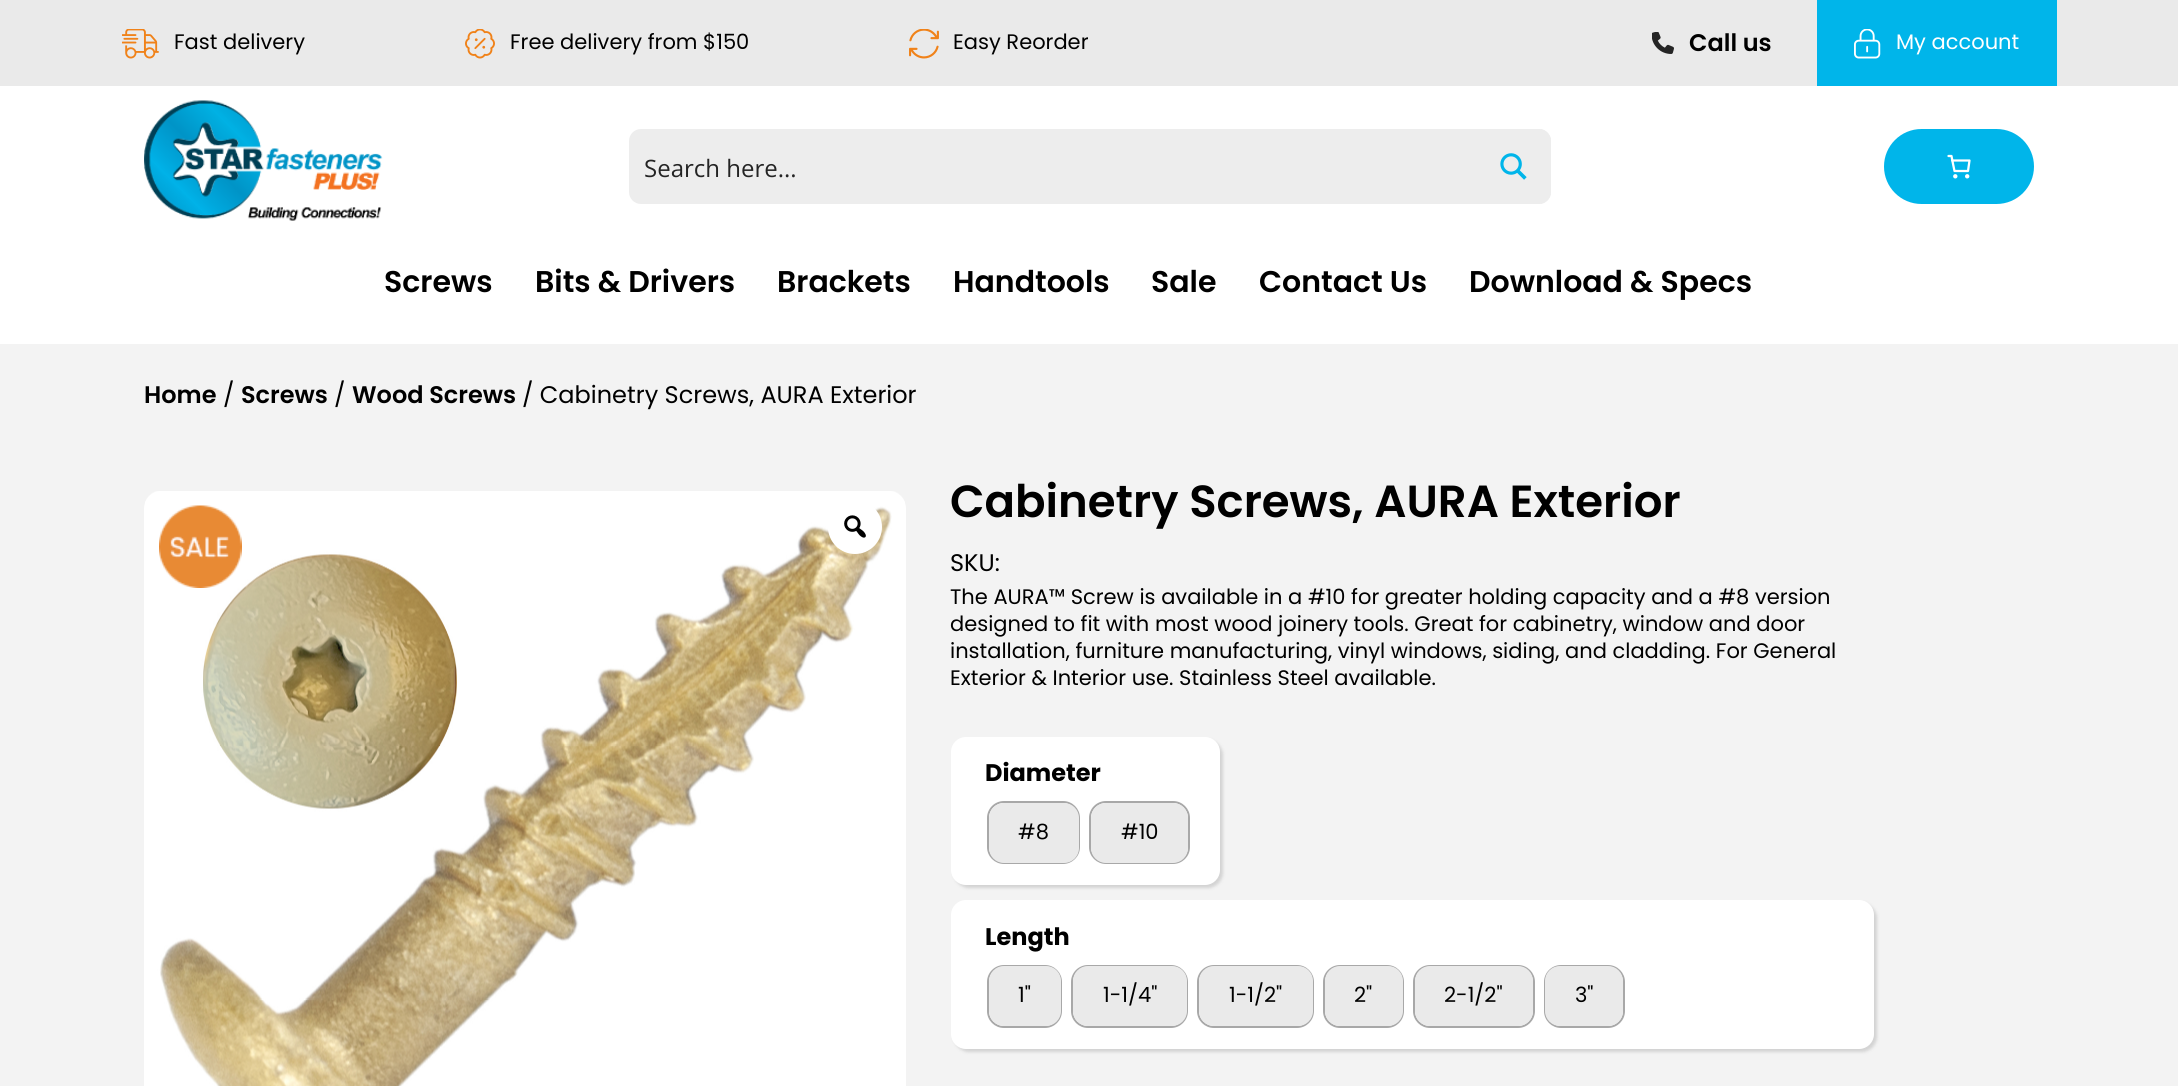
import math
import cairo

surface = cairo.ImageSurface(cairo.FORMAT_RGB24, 2178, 1086)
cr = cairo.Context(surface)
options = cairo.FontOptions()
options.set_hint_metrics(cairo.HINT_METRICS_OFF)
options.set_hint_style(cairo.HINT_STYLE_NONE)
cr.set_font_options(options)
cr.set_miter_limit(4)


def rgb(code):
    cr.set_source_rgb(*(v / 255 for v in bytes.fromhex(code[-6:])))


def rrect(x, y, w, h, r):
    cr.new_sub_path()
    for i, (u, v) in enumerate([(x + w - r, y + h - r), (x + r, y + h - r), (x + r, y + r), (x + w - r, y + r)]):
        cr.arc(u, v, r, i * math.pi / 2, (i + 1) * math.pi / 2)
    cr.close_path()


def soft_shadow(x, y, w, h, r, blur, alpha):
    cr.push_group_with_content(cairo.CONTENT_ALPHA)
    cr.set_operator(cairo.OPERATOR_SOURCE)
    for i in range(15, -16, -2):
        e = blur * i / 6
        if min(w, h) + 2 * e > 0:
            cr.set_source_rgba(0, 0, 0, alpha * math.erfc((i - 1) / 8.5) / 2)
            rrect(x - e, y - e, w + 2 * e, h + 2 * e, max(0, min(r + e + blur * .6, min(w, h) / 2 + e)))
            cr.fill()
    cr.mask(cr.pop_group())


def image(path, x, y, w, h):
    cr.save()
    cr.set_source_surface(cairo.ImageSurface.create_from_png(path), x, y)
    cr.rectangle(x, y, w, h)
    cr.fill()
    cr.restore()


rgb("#f3f3f3")
cr.paint()
rgb("#ffffff")
cr.rectangle(0, 86, 2178, 258)
cr.fill()
rgb("#eaeaea")
cr.rectangle(0, 0, 2178, 86)
cr.fill()
image("img/1.png", 122, 29, 37, 30)
image("img/2.png", 465, 29, 30, 30)
image("img/3.png", 909, 29, 30, 30)
image("img/4.png", 1652, 32, 22, 22)
rgb("#00b5ea")
cr.rectangle(1817, 0, 240, 86)
cr.fill()
image("img/5.png", 1854, 29, 27, 30)
image("img/6.png", 144, 100, 239, 121)
rgb("#ededed")
rrect(629, 129, 922, 75, 12)
cr.fill()
cr.new_path()
cr.move_to(1476, 129)
cr.line_to(1539, 129)
cr.curve_to(1545.5, 129, 1551, 134.5, 1551, 141)
cr.line_to(1551, 192)
cr.curve_to(1551, 198.5, 1545.5, 204, 1539, 204)
cr.line_to(1476, 204)
cr.close_path()
cr.fill()
image("img/7.png", 1500, 153, 27, 27)
rgb("#00b5ea")
rrect(1884, 129, 150, 75, 37.5)
cr.fill()
image("img/8.png", 1947, 154, 24, 25)
rgb("#ffffff")
rrect(144, 491, 762, 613, 18)
cr.fill()
image("img/9.png", 145, 491, 760, 595)
image("img/10.png", 159, 505, 83, 83)
cr.arc(855, 527, 27, 0, 2 * math.pi)
cr.fill()
image("img/11.png", 844, 515, 22, 23)
rgb("#d3d3d3")
soft_shadow(954, 740, 269, 148, 15, 1.5, 1)
rgb("#ffffff")
rrect(951, 737, 269, 148, 15)
cr.fill()
rrect(988, 802, 91, 61, 16)
rgb("#a8a8a8")
cr.stroke()
rgb("#eaeaea")
rrect(989, 803, 90, 60, 15)
cr.fill()
rrect(1090, 802, 99, 61, 16)
rgb("#a8a8a8")
cr.stroke()
rgb("#eaeaea")
rrect(1091, 803, 97, 60, 15)
cr.fill()
rgb("#d3d3d3")
soft_shadow(954, 903, 923, 149, 15, 1.5, 1)
rgb("#ffffff")
rrect(951, 900, 923, 149, 15)
cr.fill()
rrect(988, 966, 73, 61, 16)
rgb("#a8a8a8")
cr.stroke()
rgb("#eaeaea")
rrect(989, 966, 72, 60, 15)
cr.fill()
rrect(1072, 966, 115, 61, 16)
rgb("#a8a8a8")
cr.stroke()
rgb("#eaeaea")
rrect(1073, 966, 114, 60, 15)
cr.fill()
rrect(1198, 966, 115, 61, 16)
rgb("#a8a8a8")
cr.stroke()
rgb("#eaeaea")
rrect(1199, 966, 114, 60, 15)
cr.fill()
rrect(1324, 966, 79, 61, 16)
rgb("#a8a8a8")
cr.stroke()
rgb("#eaeaea")
rrect(1325, 966, 78, 60, 15)
cr.fill()
rrect(1414, 966, 120, 61, 16)
rgb("#a8a8a8")
cr.stroke()
rgb("#eaeaea")
rrect(1415, 966, 118, 60, 15)
cr.fill()
rrect(1545, 966, 79, 61, 16)
rgb("#a8a8a8")
cr.stroke()
rgb("#eaeaea")
rrect(1545, 966, 78, 60, 15)
cr.fill()
cr.select_font_face("Poppins")
cr.set_font_size(21)
rgb("#000000")
for x, y, s in [
    (174, 49, "Fast delivery"),
    (510, 49, "Free delivery from $150"),
    (953, 49, "Easy Reorder"),
]:
    cr.move_to(x, y)
    cr.show_text(s)
cr.select_font_face("Poppins SemiBold")
cr.set_font_size(24)
cr.move_to(1689, 51)
cr.show_text("Call us")
cr.select_font_face("Poppins")
cr.set_font_size(21)
rgb("#ffffff")
cr.move_to(1896, 49)
cr.show_text("My account")
cr.select_font_face("Open Sans")
cr.set_font_size(24)
rgb("#242424")
cr.move_to(644, 177)
cr.show_text("Search here...")
cr.select_font_face("Poppins SemiBold")
cr.set_font_size(30)
rgb("#000000")
for x, y, s in [
    (384, 292, "Screws"),
    (535, 292, "Bits & Drivers"),
    (777, 292, "Brackets"),
    (953, 292, "Handtools"),
    (1151, 292, "Sale"),
    (1259, 292, "Contact Us"),
    (1469, 292, "Download & Specs"),
]:
    cr.move_to(x, y)
    cr.show_text(s)
cr.set_font_size(24)
cr.move_to(144, 403)
cr.show_text("Home")
cr.select_font_face("Poppins")
cr.move_to(223, 403)
cr.show_text("/")
cr.select_font_face("Poppins SemiBold")
cr.move_to(241, 403)
cr.show_text("Screws")
cr.select_font_face("Poppins")
cr.move_to(334, 403)
cr.show_text("/")
cr.select_font_face("Poppins SemiBold")
cr.move_to(352, 403)
cr.show_text("Wood Screws")
cr.select_font_face("Poppins")
cr.move_to(522, 403)
cr.show_text("/ Cabinetry Screws, AURA Exterior")
cr.select_font_face("Poppins SemiBold")
cr.set_font_size(45)
cr.move_to(950, 517)
cr.show_text("Cabinetry Screws, AURA Exterior")
cr.select_font_face("Poppins")
cr.set_font_size(24)
cr.move_to(950, 571)
cr.show_text("SKU:")
cr.set_font_size(21)
for x, y, s in [
    (950, 604, "The AURA™ Screw is available in a #10 for greater holding capacity and a #8 version"),
    (950, 631, "designed to fit with most wood joinery tools. Great for cabinetry, window and door"),
    (950, 658, "installation, furniture manufacturing, vinyl windows, siding, and cladding. For General"),
    (950, 685, "Exterior & Interior use. Stainless Steel available."),
]:
    cr.move_to(x, y)
    cr.show_text(s)
cr.select_font_face("Poppins", cairo.FONT_SLANT_NORMAL, cairo.FONT_WEIGHT_BOLD)
cr.set_font_size(24)
cr.move_to(985, 781)
cr.show_text("Diameter")
cr.select_font_face("Poppins")
cr.set_font_size(21)
cr.move_to(1018, 839)
cr.show_text("#8")
cr.move_to(1121, 839)
cr.show_text("#10")
cr.select_font_face("Poppins", cairo.FONT_SLANT_NORMAL, cairo.FONT_WEIGHT_BOLD)
cr.set_font_size(24)
cr.move_to(985, 945)
cr.show_text("Length")
cr.select_font_face("Poppins")
cr.set_font_size(21)
for x, y, s in [
    (1018, 1002, "1\""),
    (1103, 1002, "1-1/4\""),
    (1229, 1002, "1-1/2\""),
    (1354, 1002, "2\""),
    (1444, 1002, "2-1/2\""),
    (1575, 1002, "3\""),
]:
    cr.move_to(x, y)
    cr.show_text(s)
surface.write_to_png("page.png")
